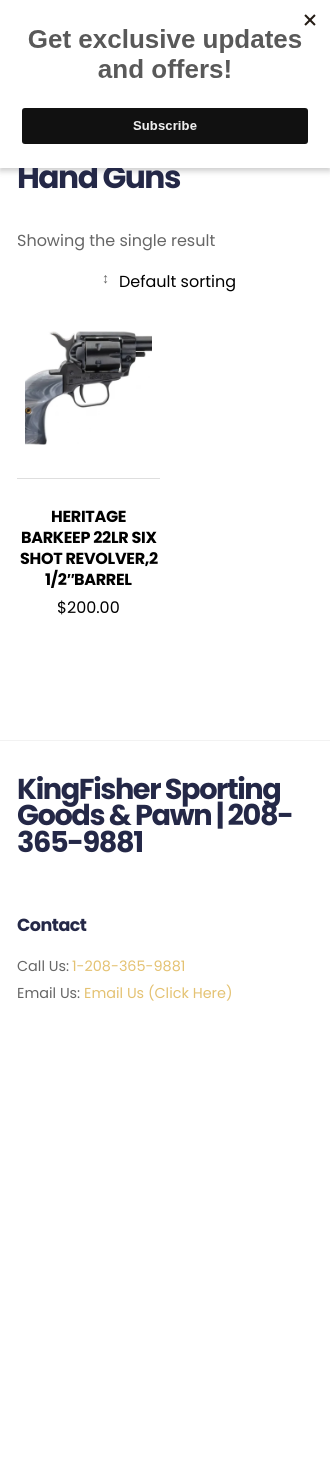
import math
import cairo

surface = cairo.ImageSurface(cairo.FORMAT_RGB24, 330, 1482)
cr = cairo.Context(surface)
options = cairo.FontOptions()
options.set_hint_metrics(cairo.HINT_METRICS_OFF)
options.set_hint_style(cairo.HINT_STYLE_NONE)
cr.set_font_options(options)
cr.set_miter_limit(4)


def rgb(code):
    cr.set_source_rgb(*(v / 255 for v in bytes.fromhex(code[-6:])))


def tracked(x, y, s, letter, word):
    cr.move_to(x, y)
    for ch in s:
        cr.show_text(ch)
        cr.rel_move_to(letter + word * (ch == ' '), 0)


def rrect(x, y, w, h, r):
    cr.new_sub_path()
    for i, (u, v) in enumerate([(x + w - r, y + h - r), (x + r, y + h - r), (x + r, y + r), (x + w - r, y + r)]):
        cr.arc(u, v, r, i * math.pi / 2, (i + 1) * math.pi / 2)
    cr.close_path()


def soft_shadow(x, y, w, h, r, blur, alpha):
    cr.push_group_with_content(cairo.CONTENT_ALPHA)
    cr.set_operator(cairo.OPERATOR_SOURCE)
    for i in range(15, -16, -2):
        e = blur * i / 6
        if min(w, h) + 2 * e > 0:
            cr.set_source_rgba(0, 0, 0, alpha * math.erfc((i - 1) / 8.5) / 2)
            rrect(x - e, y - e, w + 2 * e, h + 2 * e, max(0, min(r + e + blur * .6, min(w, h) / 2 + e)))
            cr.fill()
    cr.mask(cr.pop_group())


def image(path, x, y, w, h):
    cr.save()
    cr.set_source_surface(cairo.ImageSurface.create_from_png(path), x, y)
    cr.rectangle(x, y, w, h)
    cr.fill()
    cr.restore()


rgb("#ffffff")
cr.paint()
rgb("#000000")
soft_shadow(0, 3, 330, 168, 0, 3, 0.2)
rgb("#dedede")
cr.rectangle(17, 478, 143, 1)
cr.fill()
image("img/2.png", 25, 331, 127, 114)
rgb("#f2f2f2")
cr.rectangle(0, 740, 330, 1)
cr.fill()
cr.select_font_face("Poppins", cairo.FONT_SLANT_NORMAL, cairo.FONT_WEIGHT_BOLD)
cr.set_font_size(31.25)
rgb("#242847")
tracked(17, 188, "Hand Guns", -1.5, 0)
rgb("#ffffff")
cr.rectangle(0, 0, 330, 168)
cr.fill()
image("img/1.png", 22, 14, 294, 130)
cr.select_font_face("Poppins")
cr.set_font_size(16)
rgb("#666666")
cr.move_to(17, 246)
cr.show_text("Showing the single result")
cr.select_font_face("Liberation Sans")
cr.set_font_size(14)
cr.move_to(102, 283)
cr.show_text("↕")
cr.select_font_face("Poppins")
cr.set_font_size(16)
rgb("#000000")
cr.move_to(119, 287)
cr.show_text("Default sorting")
cr.select_font_face("Poppins", cairo.FONT_SLANT_NORMAL, cairo.FONT_WEIGHT_BOLD)
for x, y, s in [
    (51, 522, "HERITAGE"),
    (21, 543, "BARKEEP 22LR SIX"),
    (20, 564, "SHOT REVOLVER,2"),
    (45, 585, "1/2"),
]:
    tracked(x, y, s, -0.3, 0)
cr.select_font_face("Liberation Sans", cairo.FONT_SLANT_NORMAL, cairo.FONT_WEIGHT_BOLD)
tracked(67, 585, "″", -0.3, 0)
cr.select_font_face("Poppins", cairo.FONT_SLANT_NORMAL, cairo.FONT_WEIGHT_BOLD)
tracked(74, 585, "BARREL", -0.3, 0)
cr.select_font_face("Poppins")
cr.move_to(57, 613)
cr.show_text("$200.00")
cr.select_font_face("Poppins", cairo.FONT_SLANT_NORMAL, cairo.FONT_WEIGHT_BOLD)
cr.set_font_size(28.75)
rgb("#242847")
for x, y, s in [
    (17, 799, "KingFisher Sporting"),
    (17, 825, "Goods & Pawn | 208-"),
    (17, 852, "365-9881"),
]:
    tracked(x, y, s, -1.4, 0)
cr.set_font_size(17.5)
tracked(17, 931, "Contact", -0.5, 0)
cr.select_font_face("Poppins")
cr.set_font_size(14.4)
rgb("#666666")
cr.move_to(17, 971)
cr.show_text("Call Us:")
rgb("#e4c272")
cr.move_to(72, 971)
cr.show_text("1-208-365-9881")
rgb("#666666")
cr.move_to(17, 998)
cr.show_text("Email Us:")
rgb("#e4c272")
cr.move_to(84, 998)
cr.show_text("Email Us (Click Here)")
surface.write_to_png("page.png")
